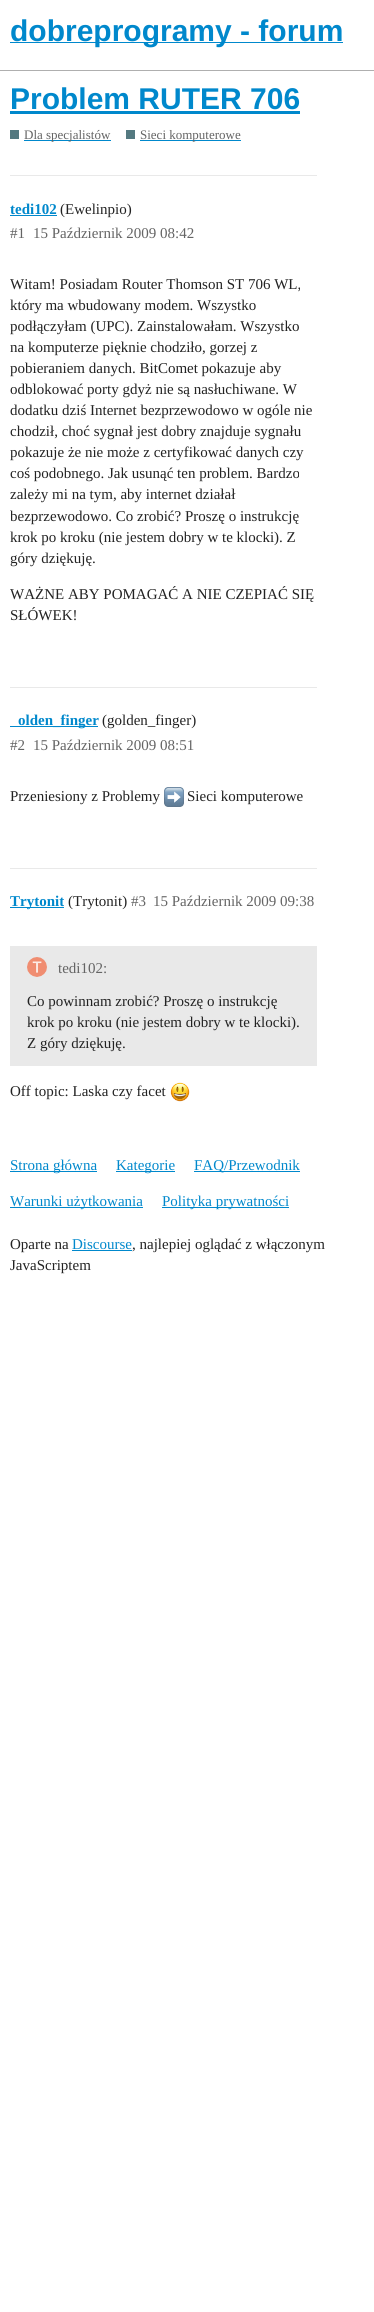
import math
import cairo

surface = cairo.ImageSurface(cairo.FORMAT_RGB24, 374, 2312)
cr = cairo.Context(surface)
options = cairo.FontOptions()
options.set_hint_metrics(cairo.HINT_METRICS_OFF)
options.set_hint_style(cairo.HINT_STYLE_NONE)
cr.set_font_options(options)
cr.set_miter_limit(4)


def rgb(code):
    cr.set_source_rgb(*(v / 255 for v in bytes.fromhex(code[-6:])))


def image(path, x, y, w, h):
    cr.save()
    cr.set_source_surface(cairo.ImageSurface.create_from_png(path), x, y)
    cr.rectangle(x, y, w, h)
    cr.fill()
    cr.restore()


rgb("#ffffff")
cr.paint()
for x, y, w, h, color in [
    (0, 70, 374, 1, "#afafaf"),
    (10, 42, 333, 1, "#0088cc"),
    (10, 111, 290, 3, "#0088cc"),
    (10, 130, 9, 9, "#547980"),
    (24, 140, 87, 1, "#0088cc"),
    (126, 130, 9, 9, "#547980"),
    (140, 140, 101, 1, "#0088cc"),
    (10, 175, 307, 1, "#e9e9e9"),
    (10, 215, 47, 1, "#0088cc"),
    (10, 687, 307, 1, "#e9e9e9"),
    (10, 726, 88, 1, "#0088cc"),
]:
    rgb(color)
    cr.rectangle(x, y, w, h)
    cr.fill()
image("img/1.png", 164, 787, 20, 20)
for x, y, w, h, color in [
    (10, 868, 307, 1, "#e9e9e9"),
    (10, 907, 54, 1, "#0088cc"),
    (10, 946, 307, 120, "#e9e9e9"),
]:
    rgb(color)
    cr.rectangle(x, y, w, h)
    cr.fill()
image("img/2.png", 27, 957, 20, 20)
image("img/3.png", 170, 1082, 20, 20)
for x, y, w, h, color in [
    (10, 1171, 87, 1, "#0088cc"),
    (116, 1171, 59, 1, "#0088cc"),
    (194, 1171, 106, 1, "#0088cc"),
    (10, 1207, 133, 1, "#0088cc"),
    (162, 1207, 127, 1, "#0088cc"),
    (72, 1250, 60, 1, "#0088cc"),
]:
    rgb(color)
    cr.rectangle(x, y, w, h)
    cr.fill()
cr.select_font_face("Liberation Sans", cairo.FONT_SLANT_NORMAL, cairo.FONT_WEIGHT_BOLD)
cr.set_font_size(30)
cr.move_to(10, 41)
cr.show_text("dobreprogramy - forum")
cr.move_to(10, 109)
cr.show_text("Problem RUTER 706")
cr.select_font_face("Liberation Serif")
cr.set_font_size(13)
rgb("#646464")
cr.move_to(24, 139)
cr.show_text("Dla specjalistów")
cr.move_to(140, 139)
cr.show_text("Sieci komputerowe")
cr.select_font_face("Liberation Serif", cairo.FONT_SLANT_NORMAL, cairo.FONT_WEIGHT_BOLD)
cr.set_font_size(15)
rgb("#0088cc")
cr.move_to(10, 214)
cr.show_text("tedi102")
cr.select_font_face("Liberation Serif")
rgb("#222222")
cr.move_to(60, 214)
cr.show_text("(Ewelinpio)")
rgb("#646464")
cr.move_to(10, 238)
cr.show_text("#1")
cr.move_to(33, 238)
cr.show_text("15 Październik 2009 08:42")
rgb("#222222")
for x, y, s in [
    (10, 289, "Witam! Posiadam Router Thomson ST 706 WL,"),
    (10, 310, "który ma wbudowany modem. Wszystko"),
    (10, 331, "podłączyłam (UPC). Zainstalowałam. Wszystko"),
    (10, 352, "na komputerze pięknie chodziło, gorzej z"),
    (10, 373, "pobieraniem danych. BitComet pokazuje aby"),
    (10, 394, "odblokować porty gdyż nie są nasłuchiwane. W"),
    (10, 415, "dodatku dziś Internet bezprzewodowo w ogóle nie"),
    (10, 436, "chodził, choć sygnał jest dobry znajduje sygnału"),
    (10, 457, "pokazuje że nie może z certyfikować danych czy"),
    (10, 478, "coś podobnego. Jak usunąć ten problem. Bardzo"),
    (10, 499, "zależy mi na tym, aby internet działał"),
    (10, 521, "bezprzewodowo. Co zrobić? Proszę o instrukcję"),
    (10, 542, "krok po kroku (nie jestem dobry w te klocki). Z"),
    (10, 563, "góry dziękuję."),
    (10, 599, "WAŻNE ABY POMAGAĆ A NIE CZEPIAĆ SIĘ"),
    (10, 620, "SŁÓWEK!"),
]:
    cr.move_to(x, y)
    cr.show_text(s)
cr.select_font_face("Liberation Serif", cairo.FONT_SLANT_NORMAL, cairo.FONT_WEIGHT_BOLD)
rgb("#0088cc")
cr.move_to(18, 725)
cr.show_text("olden_finger")
cr.select_font_face("Liberation Serif")
rgb("#222222")
cr.move_to(102, 725)
cr.show_text("(golden_finger)")
rgb("#646464")
cr.move_to(10, 750)
cr.show_text("#2")
cr.move_to(33, 750)
cr.show_text("15 Październik 2009 08:51")
rgb("#222222")
cr.move_to(10, 801)
cr.show_text("Przeniesiony z Problemy")
cr.move_to(187, 801)
cr.show_text("Sieci komputerowe")
cr.select_font_face("Liberation Serif", cairo.FONT_SLANT_NORMAL, cairo.FONT_WEIGHT_BOLD)
rgb("#0088cc")
cr.move_to(10, 906)
cr.show_text("Trytonit")
cr.select_font_face("Liberation Serif")
rgb("#222222")
cr.move_to(68, 906)
cr.show_text("(Trytonit)")
rgb("#646464")
for x, y, s in [
    (131, 906, "#3"),
    (153, 906, "15 Październik 2009 09:38"),
    (58, 973, "tedi102:"),
]:
    cr.move_to(x, y)
    cr.show_text(s)
rgb("#222222")
for x, y, s in [
    (27, 1006, "Co powinnam zrobić? Proszę o instrukcję"),
    (27, 1027, "krok po kroku (nie jestem dobry w te klocki)."),
    (27, 1048, "Z góry dziękuję."),
    (10, 1096, "Off topic: Laska czy facet"),
]:
    cr.move_to(x, y)
    cr.show_text(s)
rgb("#0088cc")
for x, y, s in [
    (10, 1170, "Strona główna"),
    (116, 1170, "Kategorie"),
    (194, 1170, "FAQ/Przewodnik"),
    (10, 1206, "Warunki użytkowania"),
    (162, 1206, "Polityka prywatności"),
]:
    cr.move_to(x, y)
    cr.show_text(s)
rgb("#222222")
cr.move_to(10, 1249)
cr.show_text("Oparte na")
rgb("#0088cc")
cr.move_to(72, 1249)
cr.show_text("Discourse")
rgb("#222222")
cr.move_to(132, 1249)
cr.show_text(", najlepiej oglądać z włączonym")
cr.move_to(10, 1270)
cr.show_text("JavaScriptem")
surface.write_to_png("page.png")
